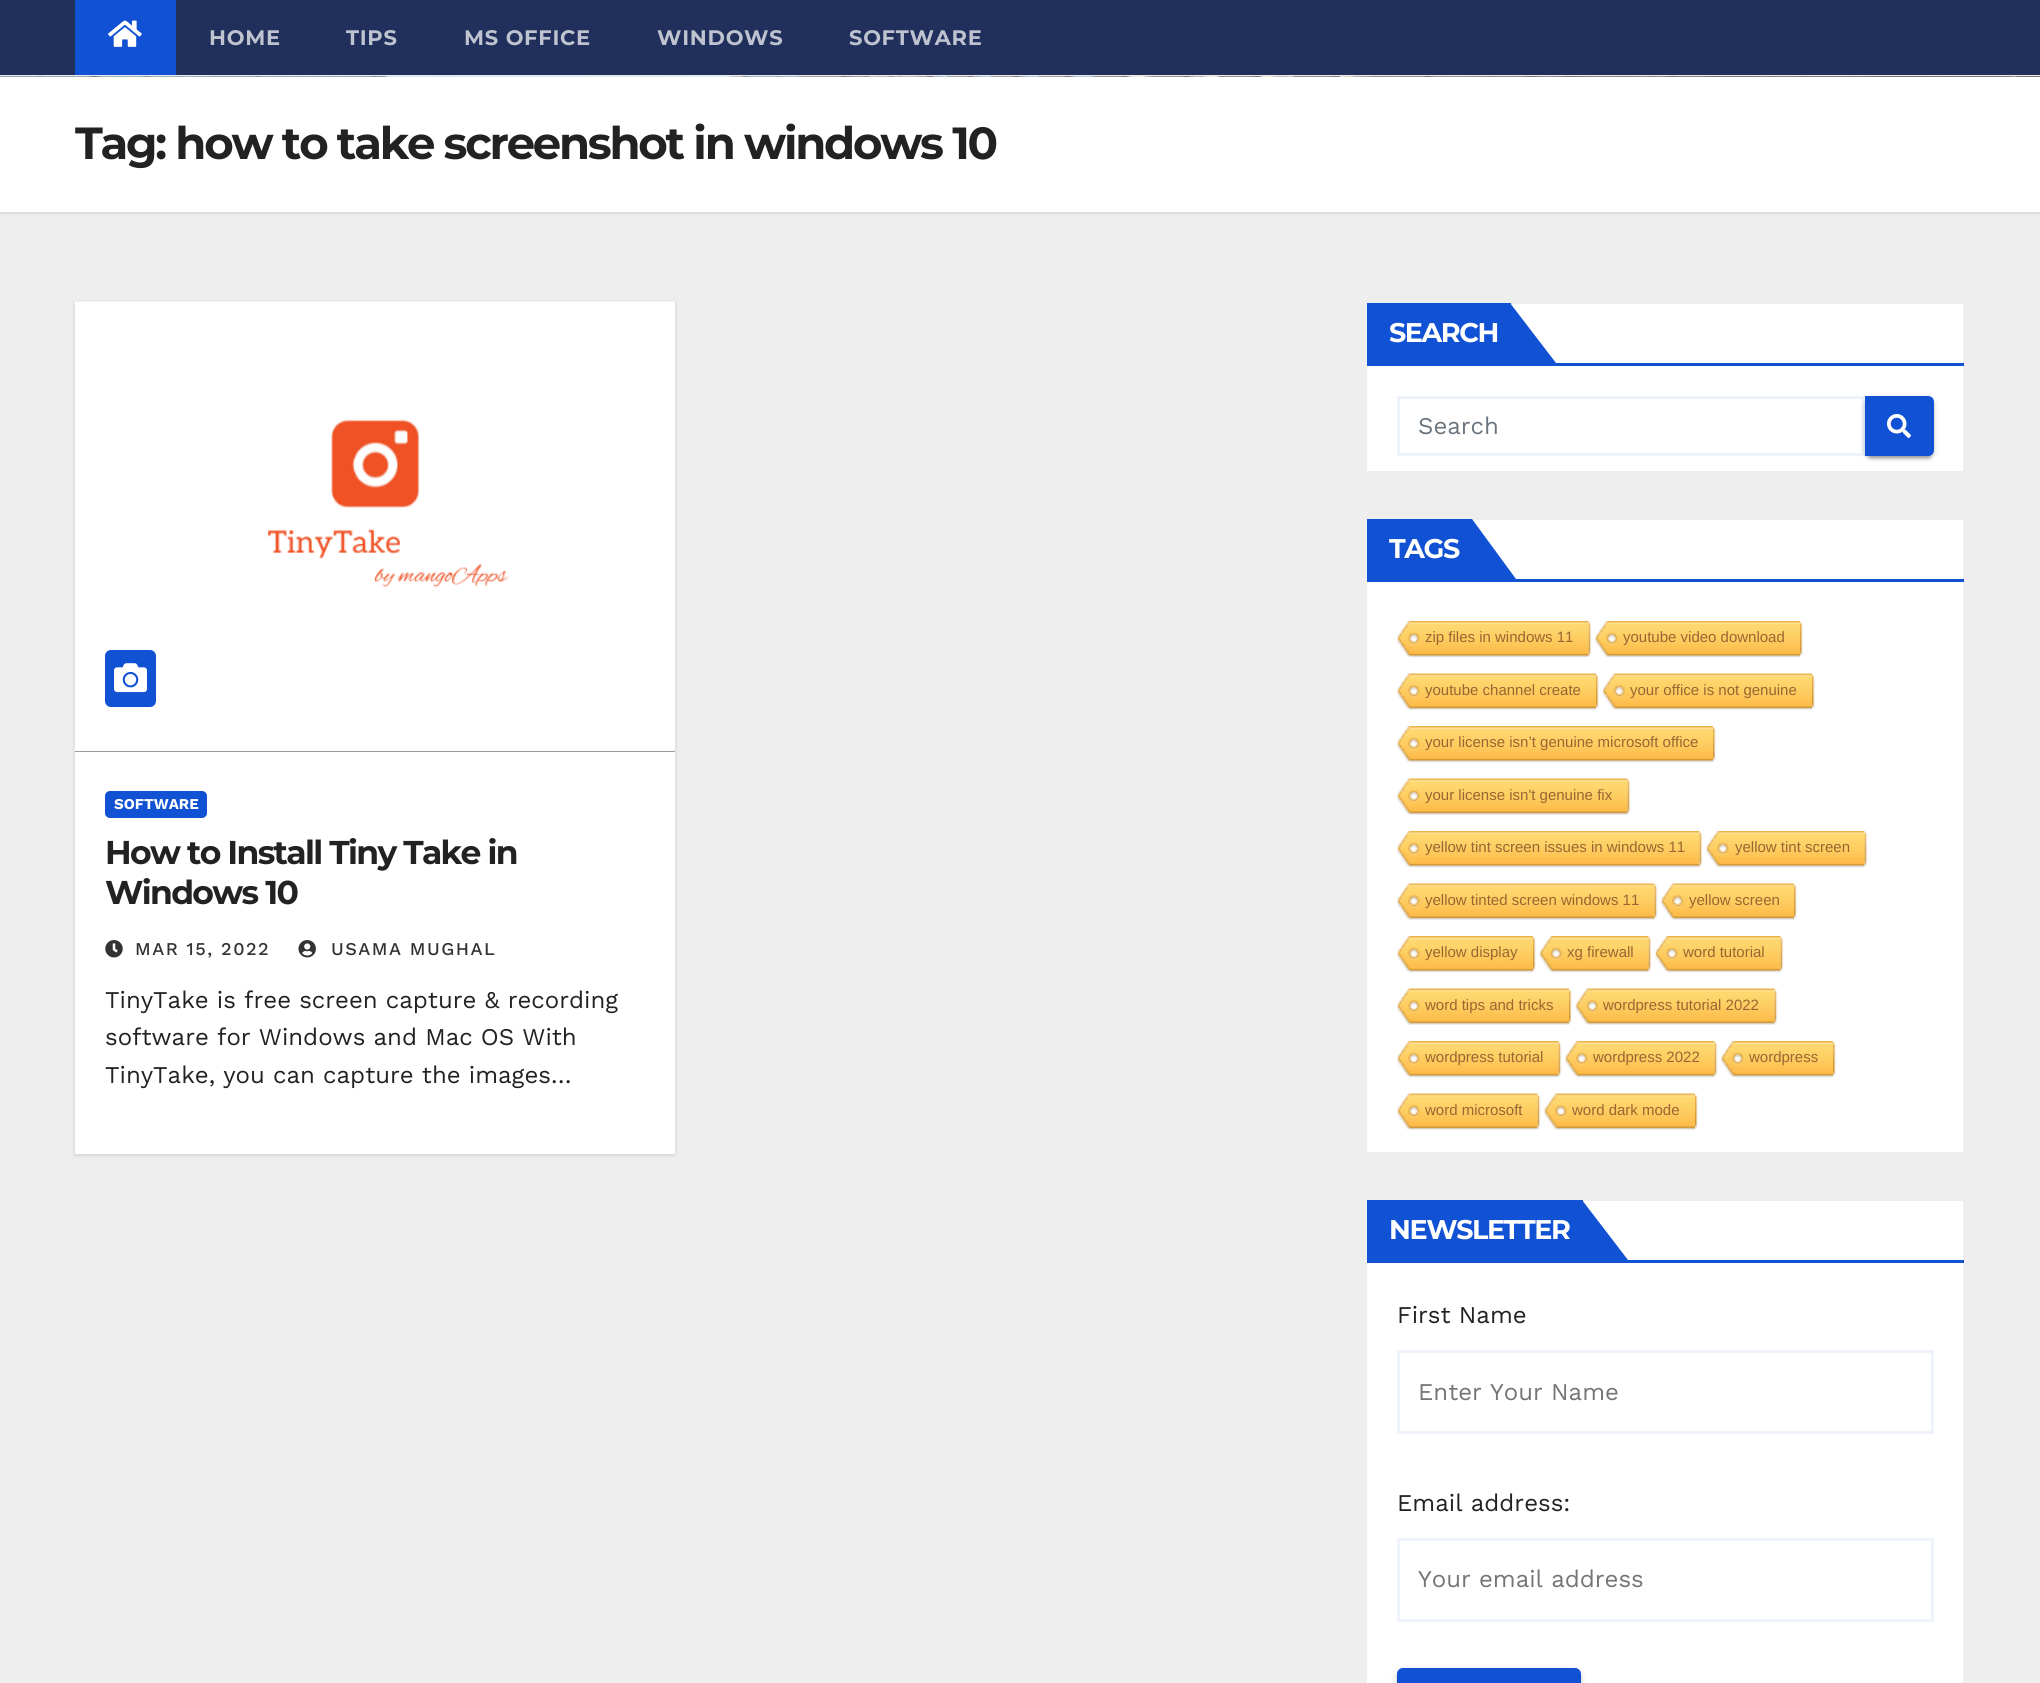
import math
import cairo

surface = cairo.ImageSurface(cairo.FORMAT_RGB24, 2040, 1683)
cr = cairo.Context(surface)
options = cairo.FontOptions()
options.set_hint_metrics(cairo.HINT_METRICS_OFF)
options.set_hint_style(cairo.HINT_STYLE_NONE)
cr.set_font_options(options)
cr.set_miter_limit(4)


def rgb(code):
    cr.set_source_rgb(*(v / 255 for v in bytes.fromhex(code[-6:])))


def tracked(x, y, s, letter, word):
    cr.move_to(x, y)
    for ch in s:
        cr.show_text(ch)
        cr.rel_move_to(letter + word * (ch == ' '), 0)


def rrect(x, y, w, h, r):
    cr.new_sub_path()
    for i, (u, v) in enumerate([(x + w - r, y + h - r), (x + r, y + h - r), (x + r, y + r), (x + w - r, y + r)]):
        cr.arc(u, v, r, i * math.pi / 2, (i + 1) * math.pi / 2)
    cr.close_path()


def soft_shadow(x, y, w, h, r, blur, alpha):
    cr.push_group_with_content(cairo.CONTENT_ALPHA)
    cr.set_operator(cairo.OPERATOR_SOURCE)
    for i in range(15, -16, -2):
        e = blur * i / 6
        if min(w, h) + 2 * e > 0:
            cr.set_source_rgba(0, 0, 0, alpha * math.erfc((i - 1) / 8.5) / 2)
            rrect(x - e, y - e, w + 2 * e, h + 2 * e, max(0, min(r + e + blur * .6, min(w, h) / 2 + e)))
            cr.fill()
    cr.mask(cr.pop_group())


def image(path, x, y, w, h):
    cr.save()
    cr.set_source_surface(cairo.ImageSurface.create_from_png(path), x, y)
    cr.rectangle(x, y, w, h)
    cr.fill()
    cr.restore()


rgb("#eeeeee")
cr.paint()
rgb("#000000")
soft_shadow(0, 78, 2040, 135, 0, 2, 0.15)
rgb("#202f5b")
cr.rectangle(0, 0, 2040, 75)
cr.fill()
rgb("#1151d3")
cr.rectangle(75, 0, 101, 75)
cr.fill()
image("img/1.png", 108, 20, 34, 27)
image("img/2.png", 0, 76, 2040, 1)
rgb("#ffffff")
cr.rectangle(0, 77, 2040, 135)
cr.fill()
rgb("#000000")
soft_shadow(75, 303, 600, 852, 0, 2, 0.15)
rgb("#ffffff")
cr.rectangle(75, 752, 600, 402)
cr.fill()
rgb("#333333")
cr.rectangle(75, 751, 600, 1)
cr.fill()
image("img/3.png", 75, 301, 600, 451)
rgb("#1151d3")
rrect(105, 650, 51, 57, 6)
cr.fill()
image("img/4.png", 114, 663, 33, 30)
rrect(105, 791, 102, 27, 5)
cr.fill()
image("img/5.png", 105, 940, 18, 18)
image("img/6.png", 298, 940, 18, 18)
for x, y, w, h, color in [
    (1367, 304, 596, 167, "#ffffff"),
    (1367, 363, 597, 3, "#1151d3"),
    (1367, 303, 144, 60, "#1151d3"),
]:
    rgb(color)
    cr.rectangle(x, y, w, h)
    cr.fill()
cr.new_path()
cr.move_to(1510, 363)
cr.line_to(1510, 303)
cr.line_to(1556, 363)
cr.close_path()
cr.fill()
cr.rectangle(1398.5, 397.5, 465, 57)
rgb("#eef3fb")
cr.set_line_width(3)
cr.stroke()
rgb("#000000")
soft_shadow(1865, 398, 69, 60, 6, 4, 0.12)
soft_shadow(1868, 404, 63, 54, 3, 1, 0.2)
soft_shadow(1865, 399, 69, 60, 6, 1.5, 0.14)
rgb("#1151d3")
cr.new_path()
cr.move_to(1865, 396)
cr.line_to(1928, 396)
cr.curve_to(1931.5, 396, 1934, 398.5, 1934, 402)
cr.line_to(1934, 450)
cr.curve_to(1934, 453.5, 1931.5, 456, 1928, 456)
cr.line_to(1865, 456)
cr.close_path()
cr.fill()
image("img/7.png", 1887, 414, 24, 24)
for x, y, w, h, color in [
    (1367, 520, 596, 632, "#ffffff"),
    (1367, 579, 597, 3, "#1151d3"),
    (1367, 519, 105, 60, "#1151d3"),
]:
    rgb(color)
    cr.rectangle(x, y, w, h)
    cr.fill()
cr.new_path()
cr.move_to(1472, 579)
cr.line_to(1472, 519)
cr.line_to(1516, 579)
cr.close_path()
cr.fill()
image("img/8.png", 1397, 621, 192, 37)
image("img/9.png", 1588, 622, 4, 35)
image("img/10.png", 1595, 621, 205, 37)
image("img/11.png", 1800, 621, 3, 36)
image("img/12.png", 1397, 673, 199, 37)
image("img/13.png", 1596, 674, 3, 36)
image("img/14.png", 1602, 673, 210, 37)
image("img/15.png", 1812, 674, 3, 36)
image("img/16.png", 1396, 726, 317, 37)
image("img/17.png", 1713, 726, 3, 36)
image("img/18.png", 1397, 778, 231, 37)
image("img/19.png", 1627, 779, 4, 35)
image("img/20.png", 1396, 831, 304, 37)
image("img/9.png", 1699, 832, 4, 35)
image("img/21.png", 1706, 831, 159, 37)
image("img/9.png", 1864, 832, 4, 35)
image("img/22.png", 1397, 883, 258, 37)
image("img/19.png", 1654, 884, 4, 35)
image("img/23.png", 1660, 883, 134, 37)
image("img/15.png", 1794, 884, 3, 36)
image("img/24.png", 1397, 936, 136, 37)
image("img/17.png", 1533, 936, 3, 36)
image("img/25.png", 1539, 936, 110, 37)
image("img/9.png", 1648, 937, 4, 35)
image("img/26.png", 1655, 936, 126, 37)
image("img/9.png", 1780, 937, 4, 35)
image("img/27.png", 1397, 988, 172, 37)
image("img/13.png", 1569, 989, 3, 36)
image("img/28.png", 1575, 988, 200, 37)
image("img/19.png", 1774, 989, 4, 35)
image("img/29.png", 1397, 1041, 162, 37)
image("img/9.png", 1558, 1042, 4, 35)
image("img/30.png", 1564, 1041, 151, 37)
image("img/9.png", 1714, 1042, 4, 35)
image("img/31.png", 1720, 1041, 113, 37)
image("img/11.png", 1833, 1041, 3, 36)
image("img/32.png", 1397, 1093, 141, 37)
image("img/19.png", 1537, 1094, 4, 35)
image("img/33.png", 1544, 1093, 151, 37)
image("img/13.png", 1695, 1094, 3, 36)
for x, y, w, h, color in [
    (1367, 1201, 596, 482, "#ffffff"),
    (1367, 1260, 597, 3, "#1151d3"),
    (1367, 1200, 216, 60, "#1151d3"),
]:
    rgb(color)
    cr.rectangle(x, y, w, h)
    cr.fill()
cr.new_path()
cr.move_to(1582, 1260)
cr.line_to(1582, 1200)
cr.line_to(1628, 1260)
cr.close_path()
cr.fill()
cr.rectangle(1398.5, 1351.5, 534, 81)
rgb("#eef3fb")
cr.stroke()
cr.rectangle(1398.5, 1539.5, 534, 81)
cr.stroke()
rgb("#000000")
soft_shadow(1397, 1670, 184, 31, 6, 4, 0.12)
soft_shadow(1397, 1671, 184, 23, 6, 1.5, 0.14)
rgb("#1151d3")
rrect(1398, 1669, 182, 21, 5)
cr.fill_preserve()
cr.set_line_width(2)
cr.stroke()
cr.select_font_face("Montserrat", cairo.FONT_SLANT_NORMAL, cairo.FONT_WEIGHT_BOLD)
cr.set_font_size(21)
rgb("#bec3cf")
for x, y, s in [
    (209, 45, "HOME"),
    (346, 45, "TIPS"),
    (464, 45, "MS OFFICE"),
    (657, 45, "WINDOWS"),
    (849, 45, "SOFTWARE"),
]:
    tracked(x, y, s, 0.75, 0)
cr.set_font_size(45)
rgb("#222222")
tracked(75, 159, "Tag: how to take screenshot in windows 10", -2.25, 0)
cr.select_font_face("Work Sans", cairo.FONT_SLANT_NORMAL, cairo.FONT_WEIGHT_BOLD)
cr.set_font_size(15)
rgb("#ffffff")
cr.move_to(114, 809)
cr.show_text("SOFTWARE")
cr.select_font_face("Montserrat", cairo.FONT_SLANT_NORMAL, cairo.FONT_WEIGHT_BOLD)
cr.set_font_size(33)
rgb("#222222")
tracked(105, 864, "How to Install Tiny Take in", -1.65, 0)
tracked(105, 904, "Windows 10", -1.65, 0)
cr.select_font_face("Work Sans Medium")
cr.set_font_size(18)
rgb("#333333")
tracked(135, 955, "MAR 15, 2022", 1.5, 0)
tracked(331, 955, "USAMA MUGHAL", 1.5, 0)
cr.select_font_face("Work Sans")
cr.set_font_size(24)
rgb("#222222")
for x, y, s in [
    (105, 1008, "TinyTake is free screen capture & recording"),
    (105, 1045, "software for Windows and Mac OS With"),
    (105, 1083, "TinyTake, you can capture the images…"),
]:
    cr.move_to(x, y)
    cr.show_text(s)
cr.select_font_face("Montserrat", cairo.FONT_SLANT_NORMAL, cairo.FONT_WEIGHT_BOLD)
cr.set_font_size(27)
rgb("#ffffff")
tracked(1389, 342, "SEARCH", -1.4, 0)
cr.select_font_face("Work Sans")
cr.set_font_size(24)
rgb("#6c757d")
cr.move_to(1418, 434)
cr.show_text("Search")
cr.select_font_face("Montserrat", cairo.FONT_SLANT_NORMAL, cairo.FONT_WEIGHT_BOLD)
cr.set_font_size(27)
rgb("#ffffff")
tracked(1389, 558, "TAGS", -1.4, 0)
cr.select_font_face("Liberation Sans")
cr.set_font_size(15)
rgb("#996633")
for x, y, s in [
    (1425, 642, "zip files in windows 11"),
    (1623, 642, "youtube video download"),
    (1425, 695, "youtube channel create"),
    (1630, 695, "your office is not genuine"),
    (1425, 747, "your license isn’t genuine microsoft office"),
    (1425, 800, "your license isn't genuine fix"),
    (1425, 852, "yellow tint screen issues in windows 11"),
    (1735, 852, "yellow tint screen"),
    (1425, 905, "yellow tinted screen windows 11"),
    (1689, 905, "yellow screen"),
    (1425, 957, "yellow display"),
    (1567, 957, "xg firewall"),
    (1683, 957, "word tutorial"),
    (1425, 1010, "word tips and tricks"),
    (1603, 1010, "wordpress tutorial 2022"),
    (1425, 1062, "wordpress tutorial"),
    (1593, 1062, "wordpress 2022"),
    (1749, 1062, "wordpress"),
    (1425, 1115, "word microsoft"),
    (1572, 1115, "word dark mode"),
]:
    cr.move_to(x, y)
    cr.show_text(s)
cr.select_font_face("Montserrat", cairo.FONT_SLANT_NORMAL, cairo.FONT_WEIGHT_BOLD)
cr.set_font_size(27)
rgb("#ffffff")
tracked(1389, 1239, "NEWSLETTER", -1.4, 0)
cr.select_font_face("Work Sans")
cr.set_font_size(24)
rgb("#222222")
cr.move_to(1397, 1323)
cr.show_text("First Name")
rgb("#757575")
cr.move_to(1418, 1400)
cr.show_text("Enter Your Name")
rgb("#222222")
cr.move_to(1397, 1511)
cr.show_text("Email address:")
rgb("#757575")
cr.move_to(1418, 1587)
cr.show_text("Your email address")
surface.write_to_png("page.png")
